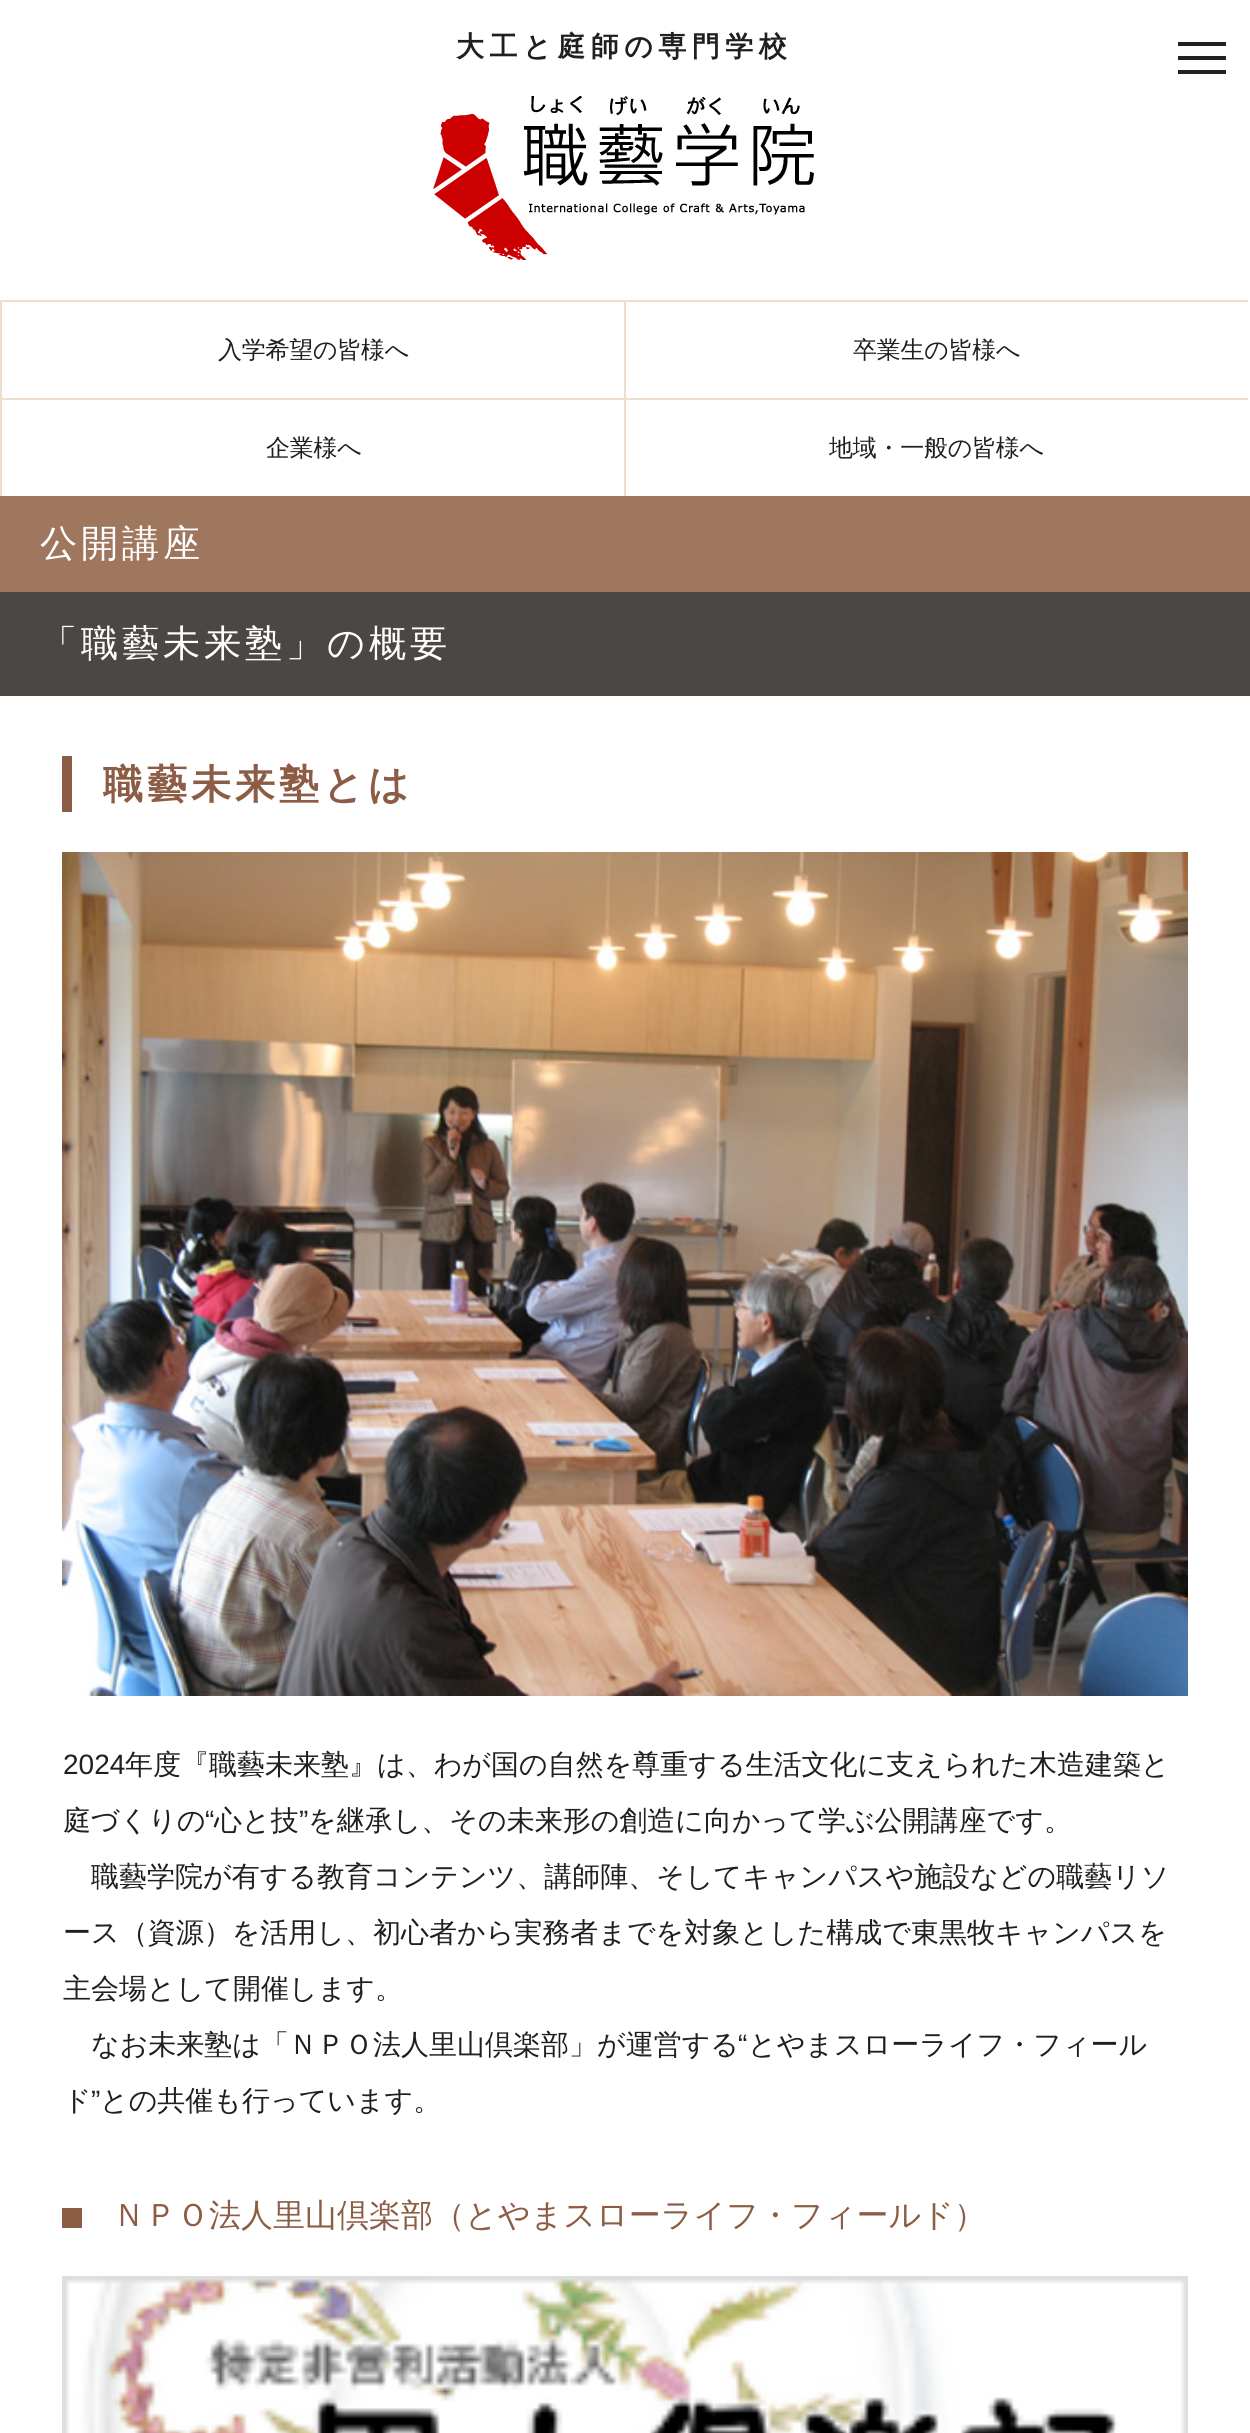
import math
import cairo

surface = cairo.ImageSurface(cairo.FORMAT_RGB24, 1250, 2433)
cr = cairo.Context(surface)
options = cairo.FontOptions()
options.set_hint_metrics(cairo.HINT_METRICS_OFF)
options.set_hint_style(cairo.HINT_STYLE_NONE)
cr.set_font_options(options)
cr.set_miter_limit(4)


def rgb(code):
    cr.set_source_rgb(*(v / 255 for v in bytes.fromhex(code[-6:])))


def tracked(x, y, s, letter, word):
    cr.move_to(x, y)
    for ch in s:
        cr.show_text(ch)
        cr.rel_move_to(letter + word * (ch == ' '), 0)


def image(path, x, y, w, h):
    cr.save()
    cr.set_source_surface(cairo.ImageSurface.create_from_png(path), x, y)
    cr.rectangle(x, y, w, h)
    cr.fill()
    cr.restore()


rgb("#ffffff")
cr.paint()
image("img/1.png", 433, 96, 381, 164)
for x, y, w, h, color in [
    (0, 300, 2, 196, "#eedece"),
    (2, 300, 1246, 2, "#eedece"),
    (624, 302, 2, 96, "#eedece"),
    (2, 398, 1246, 2, "#eedece"),
    (624, 400, 2, 96, "#eedece"),
    (0, 592, 1250, 104, "#4b4745"),
    (0, 496, 1250, 96, "#9f765e"),
    (62, 756, 10, 56, "#8c5c44"),
]:
    rgb(color)
    cr.rectangle(x, y, w, h)
    cr.fill()
image("img/2.png", 62, 852, 1126, 844)
cr.rectangle(62, 2208, 20, 20)
cr.fill()
image("img/3.png", 62, 2276, 1126, 157)
for x, y, w, h, color in [
    (1178, 56, 48, 4, "#222222"),
    (1178, 42, 48, 4, "#222222"),
    (1178, 70, 48, 4, "#222222"),
]:
    rgb(color)
    cr.rectangle(x, y, w, h)
    cr.fill()
cr.select_font_face("WenQuanYi Zen Hei", cairo.FONT_SLANT_NORMAL, cairo.FONT_WEIGHT_BOLD)
cr.set_font_size(28)
rgb("#201f1f")
tracked(456, 56, "大工と庭師の専門学校", 5.5, 0)
cr.select_font_face("WenQuanYi Zen Hei Medium")
cr.set_font_size(24)
for x, y, s in [
    (218, 358, "入学希望の皆様へ"),
    (853, 358, "卒業生の皆様へ"),
    (266, 456, "企業様へ"),
    (829, 456, "地域・一般の皆様へ"),
]:
    tracked(x, y, s, -0.25, 0)
cr.set_font_size(37.25)
rgb("#ffffff")
tracked(40, 556, "公開講座", 3.75, 0)
tracked(40, 656, "「職藝未来塾」の概要", 3.75, 0)
cr.select_font_face("WenQuanYi Zen Hei", cairo.FONT_SLANT_NORMAL, cairo.FONT_WEIGHT_BOLD)
cr.set_font_size(40)
rgb("#8c5c44")
tracked(103, 798, "職藝未来塾とは", 4, 0)
cr.select_font_face("Liberation Sans")
cr.set_font_size(28)
rgb("#201f1f")
cr.move_to(63, 1774)
cr.show_text("2024")
cr.select_font_face("WenQuanYi Zen Hei Medium")
cr.move_to(125, 1774)
cr.show_text("年度『職藝未来塾』は、わが国の自然を尊重する生活文化に支えられた木造建築と")
cr.move_to(63, 1830)
cr.show_text("庭づくりの")
cr.select_font_face("Liberation Sans")
cr.move_to(205, 1830)
cr.show_text("“")
cr.select_font_face("WenQuanYi Zen Hei Medium")
cr.move_to(214, 1830)
cr.show_text("心と技")
cr.select_font_face("Liberation Sans")
cr.move_to(299, 1830)
cr.show_text("”")
cr.select_font_face("WenQuanYi Zen Hei Medium")
for x, y, s in [
    (308, 1830, "を継承し、その未来形の創造に向かって学ぶ公開講座です。"),
    (91, 1886, "職藝学院が有する教育コンテンツ、講師陣、そしてキャンパスや施設などの職藝リソ"),
    (63, 1942, "ース（資源）を活用し、初心者から実務者までを対象とした構成で東黒牧キャンパスを"),
    (63, 1998, "主会場として開催します。"),
    (91, 2054, "なお未来塾は「ＮＰＯ法人里山倶楽部」が運営する"),
]:
    cr.move_to(x, y)
    cr.show_text(s)
cr.select_font_face("Liberation Sans")
cr.move_to(738, 2054)
cr.show_text("“")
cr.select_font_face("WenQuanYi Zen Hei Medium")
cr.move_to(748, 2054)
cr.show_text("とやまスローライフ・フィール")
cr.move_to(63, 2110)
cr.show_text("ド")
cr.select_font_face("Liberation Sans")
cr.move_to(91, 2110)
cr.show_text("”")
cr.select_font_face("WenQuanYi Zen Hei Medium")
cr.move_to(100, 2110)
cr.show_text("との共催も行っています。")
cr.set_font_size(32)
rgb("#8c5c44")
cr.move_to(113, 2226)
cr.show_text("ＮＰＯ法人里山倶楽部（とやまスローライフ・フィールド）")
surface.write_to_png("page.png")
